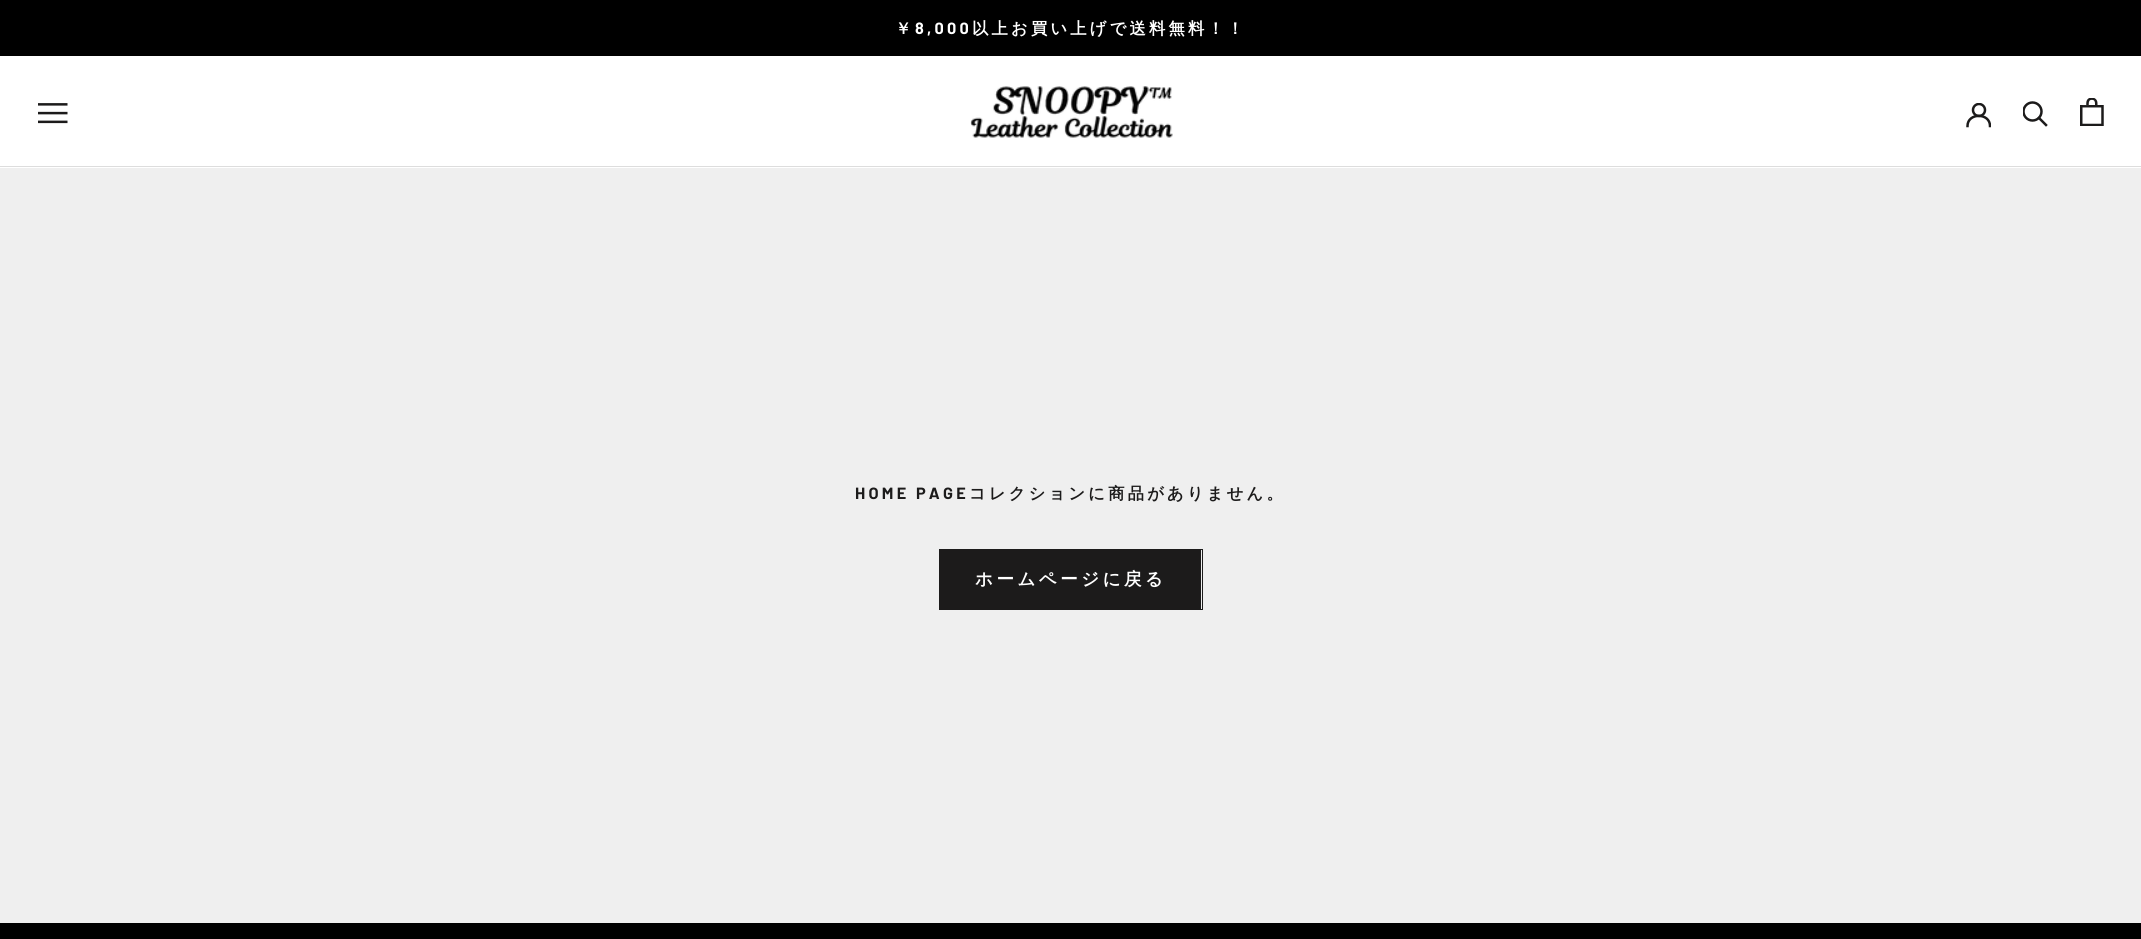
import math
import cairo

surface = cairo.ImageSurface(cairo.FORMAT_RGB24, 2141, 939)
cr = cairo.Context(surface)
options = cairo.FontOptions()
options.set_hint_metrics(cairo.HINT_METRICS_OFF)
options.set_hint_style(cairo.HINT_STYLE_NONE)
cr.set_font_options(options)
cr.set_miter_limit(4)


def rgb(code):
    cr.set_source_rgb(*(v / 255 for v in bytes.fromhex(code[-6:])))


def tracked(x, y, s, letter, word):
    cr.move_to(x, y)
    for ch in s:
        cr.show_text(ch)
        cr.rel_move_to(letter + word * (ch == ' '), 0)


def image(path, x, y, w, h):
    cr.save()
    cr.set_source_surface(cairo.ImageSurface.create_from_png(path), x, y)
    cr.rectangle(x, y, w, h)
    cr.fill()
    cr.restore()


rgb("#efefef")
cr.paint()
for x, y, w, h, color in [
    (0, 0, 2141, 56, "#000000"),
    (0, 56, 2141, 112, "#ffffff"),
    (0, 166, 2141, 1, "#dddddd"),
]:
    rgb(color)
    cr.rectangle(x, y, w, h)
    cr.fill()
image("img/1.png", 38, 103, 30, 21)
image("img/2.png", 970, 86, 203, 52)
cr.save()
cr.rectangle(1966, 103, 25, 25)
cr.clip()
cr.new_path()
cr.move_to(1967.5, 126)
cr.curve_to(1967.5, 112.5, 1990, 112.5, 1990, 126)
rgb("#1c1b1b")
cr.set_line_width(2.5)
cr.set_line_cap(cairo.LINE_CAP_SQUARE)
cr.stroke()
cr.arc(1979, 110, 6, 0, 2 * math.pi)
cr.set_line_cap(cairo.LINE_CAP_BUTT)
cr.stroke()
cr.restore()
cr.new_path()
cr.move_to(2046, 125)
cr.line_to(2039, 118)
rgb("#1c1b1b")
cr.set_line_width(2.5)
cr.set_line_cap(cairo.LINE_CAP_SQUARE)
cr.stroke()
cr.save()
cr.rectangle(2023, 101, 26, 27)
cr.clip()
cr.arc(2032.5, 111.5, 9, 0, 2 * math.pi)
cr.set_line_cap(cairo.LINE_CAP_BUTT)
cr.stroke()
cr.restore()
image("img/3.png", 2080, 98, 24, 28)
cr.rectangle(939.5, 549.5, 263, 60)
cr.set_line_width(1)
cr.set_line_cap(cairo.LINE_CAP_BUTT)
cr.stroke()
cr.rectangle(940, 550, 261, 59)
cr.fill()
rgb("#000000")
cr.rectangle(0, 923, 2141, 16)
cr.fill()
cr.select_font_face("WenQuanYi Zen Hei", cairo.FONT_SLANT_NORMAL, cairo.FONT_WEIGHT_BOLD)
cr.set_font_size(16.25)
rgb("#ffffff")
tracked(895, 34, "￥", 3.25, 0)
cr.select_font_face("Barlow", cairo.FONT_SLANT_NORMAL, cairo.FONT_WEIGHT_BOLD)
tracked(915, 34, "8,000", 3.25, 0)
cr.select_font_face("WenQuanYi Zen Hei", cairo.FONT_SLANT_NORMAL, cairo.FONT_WEIGHT_BOLD)
tracked(972, 34, "以上お買い上げで送料無料！！", 3.25, 0)
cr.select_font_face("Barlow", cairo.FONT_SLANT_NORMAL, cairo.FONT_WEIGHT_BOLD)
rgb("#1c1b1b")
tracked(855, 499, "HOME PAGE", 3.25, 0)
cr.select_font_face("WenQuanYi Zen Hei", cairo.FONT_SLANT_NORMAL, cairo.FONT_WEIGHT_BOLD)
tracked(969, 499, "コレクションに商品がありません。", 3.25, 0)
cr.set_font_size(17.5)
rgb("#ffffff")
tracked(975, 585, "ホームページに戻る", 3.5, 0)
surface.write_to_png("page.png")
